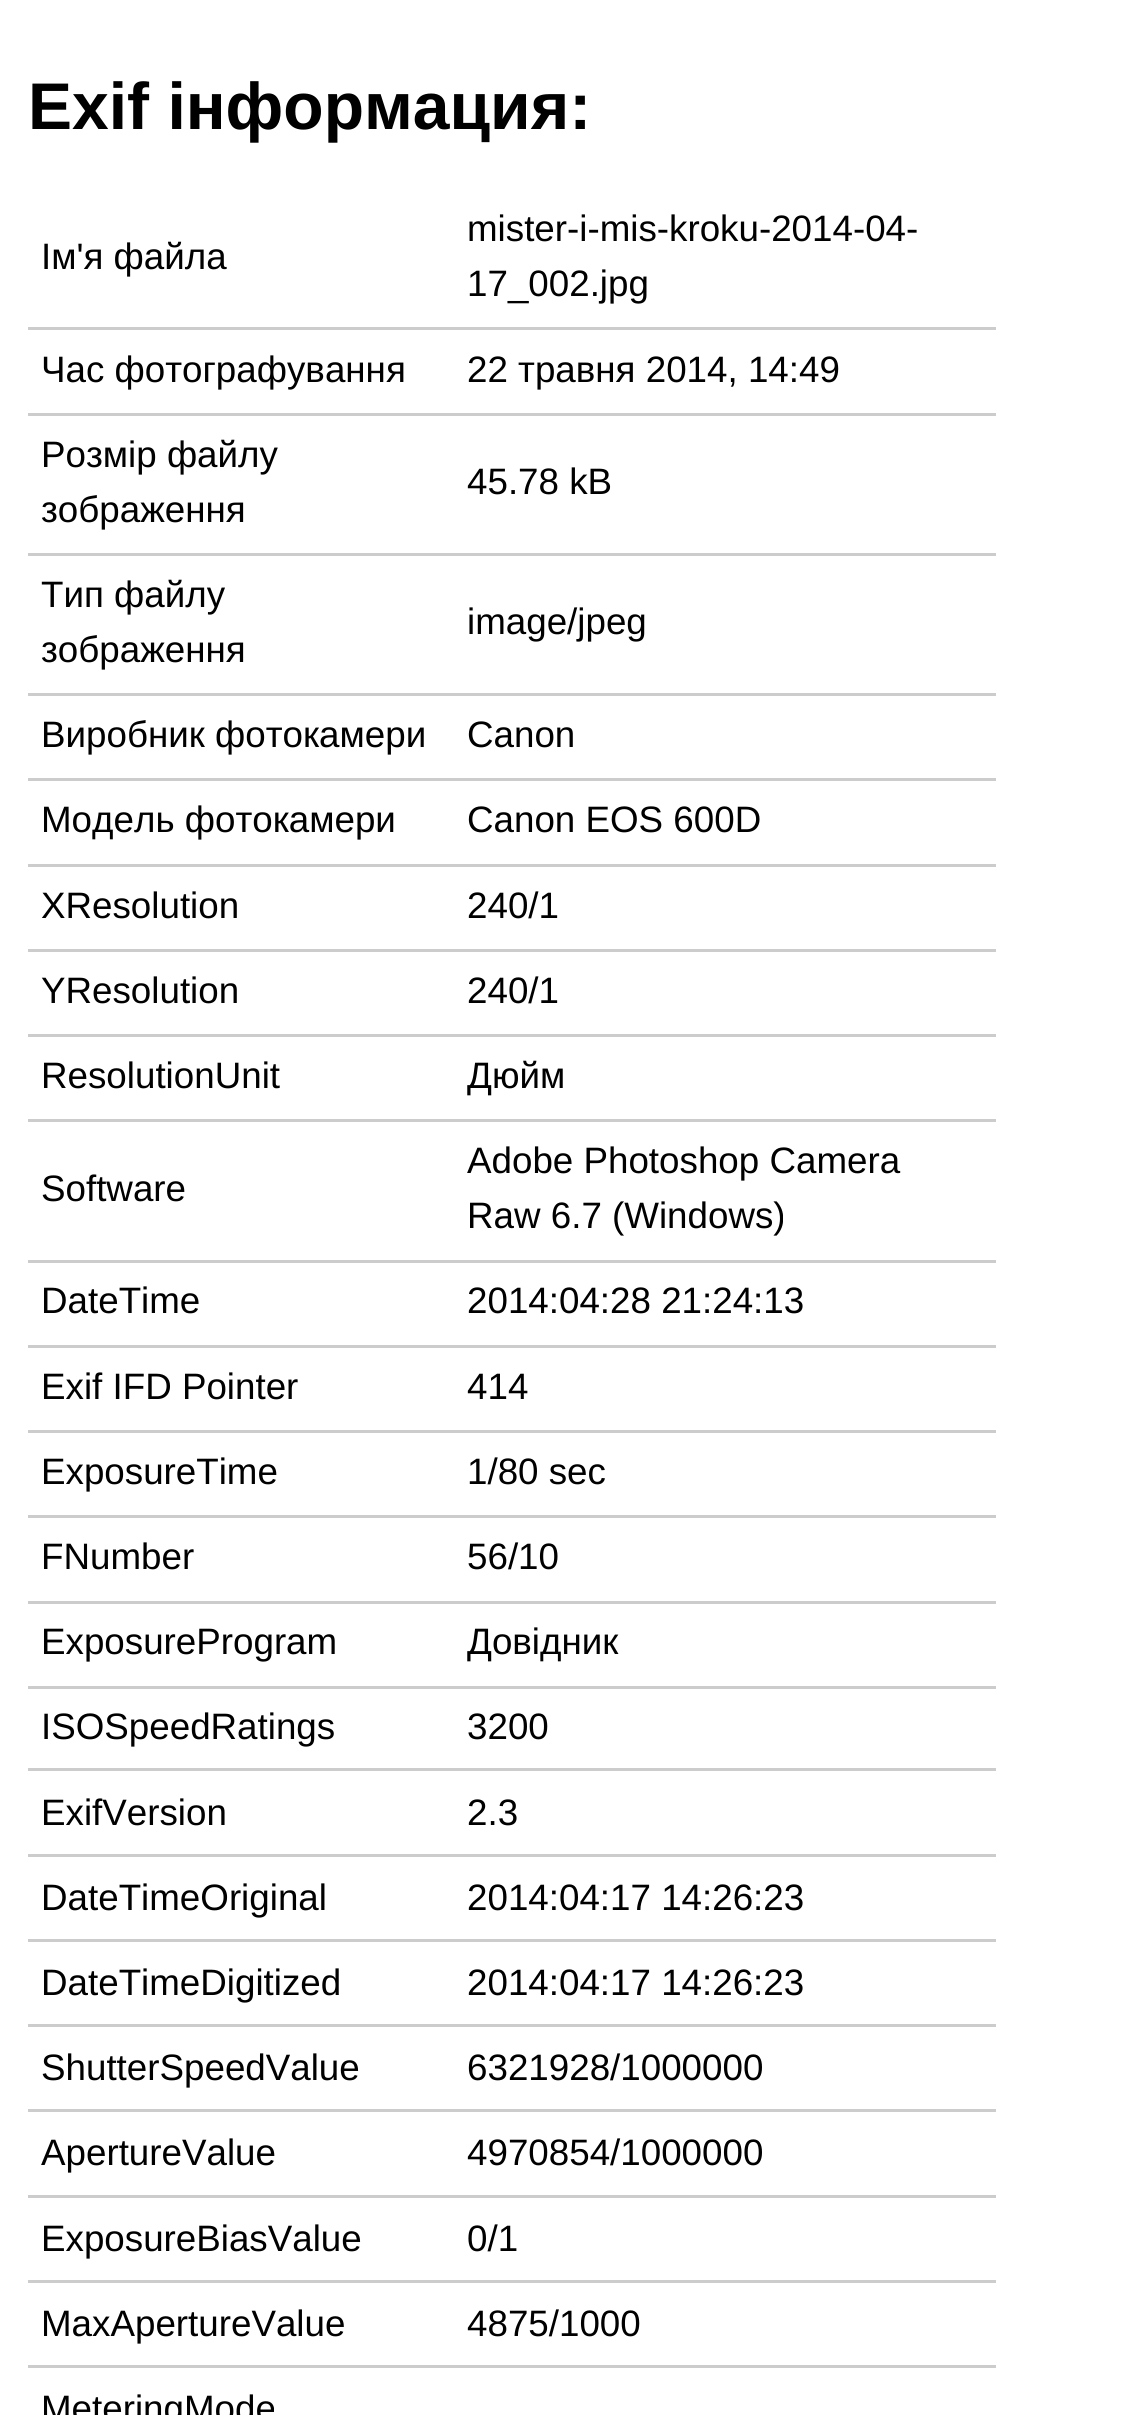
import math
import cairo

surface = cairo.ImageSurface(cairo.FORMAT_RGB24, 1130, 2415)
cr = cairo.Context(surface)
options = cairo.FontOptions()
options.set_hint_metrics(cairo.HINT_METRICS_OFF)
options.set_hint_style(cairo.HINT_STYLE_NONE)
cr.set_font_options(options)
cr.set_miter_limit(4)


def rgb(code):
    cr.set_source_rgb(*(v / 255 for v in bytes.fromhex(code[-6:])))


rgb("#ffffff")
cr.paint()
for x, y, w, h, color in [
    (28, 327, 968, 3, "#cccccc"),
    (28, 413, 968, 3, "#cccccc"),
    (28, 553, 968, 3, "#cccccc"),
    (28, 693, 968, 3, "#cccccc"),
    (28, 778, 968, 3, "#cccccc"),
    (28, 864, 968, 3, "#cccccc"),
    (28, 949, 968, 3, "#cccccc"),
    (28, 1034, 968, 3, "#cccccc"),
    (28, 1119, 968, 3, "#cccccc"),
    (28, 1260, 968, 3, "#cccccc"),
    (28, 1345, 968, 3, "#cccccc"),
    (28, 1430, 968, 3, "#cccccc"),
    (28, 1515, 968, 3, "#cccccc"),
    (28, 1601, 968, 3, "#cccccc"),
    (28, 1686, 968, 3, "#cccccc"),
    (28, 1768, 968, 3, "#cccccc"),
    (28, 1854, 968, 3, "#cccccc"),
    (28, 1939, 968, 3, "#cccccc"),
    (28, 2024, 968, 3, "#cccccc"),
    (28, 2109, 968, 3, "#cccccc"),
    (28, 2195, 968, 3, "#cccccc"),
    (28, 2280, 968, 3, "#cccccc"),
    (28, 2365, 968, 3, "#cccccc"),
]:
    rgb(color)
    cr.rectangle(x, y, w, h)
    cr.fill()
cr.select_font_face("Liberation Sans", cairo.FONT_SLANT_NORMAL, cairo.FONT_WEIGHT_BOLD)
cr.set_font_size(66)
rgb("#000000")
cr.move_to(28, 129)
cr.show_text("Exif інформация:")
cr.select_font_face("Liberation Sans")
cr.set_font_size(36.75)
for x, y, s in [
    (41, 269, "Ім'я файла"),
    (467, 241, "mister-i-mis-kroku-2014-04-"),
    (467, 296, "17_002.jpg"),
    (41, 382, "Час фотографування"),
    (467, 382, "22 травня 2014, 14:49"),
    (41, 467, "Розмір файлу"),
    (41, 522, "зображення"),
    (467, 494, "45.78 kB"),
    (41, 607, "Тип файлу"),
    (41, 662, "зображення"),
    (467, 634, "image/jpeg"),
    (41, 747, "Виробник фотокамери"),
    (467, 747, "Canon"),
    (41, 832, "Модель фотокамери"),
    (467, 832, "Canon EOS 600D"),
    (41, 918, "XResolution"),
    (467, 918, "240/1"),
    (41, 1003, "YResolution"),
    (467, 1003, "240/1"),
    (41, 1088, "ResolutionUnit"),
    (467, 1088, "Дюйм"),
    (41, 1201, "Software"),
    (467, 1173, "Adobe Photoshop Camera"),
    (467, 1228, "Raw 6.7 (Windows)"),
    (41, 1313, "DateTime"),
    (467, 1313, "2014:04:28 21:24:13"),
    (41, 1399, "Exif IFD Pointer"),
    (467, 1399, "414"),
    (41, 1484, "ExposureTime"),
    (467, 1484, "1/80 sec"),
    (41, 1569, "FNumber"),
    (467, 1569, "56/10"),
    (41, 1654, "ExposureProgram"),
    (467, 1654, "Довідник"),
    (41, 1739, "ISOSpeedRatings"),
    (467, 1739, "3200"),
    (41, 1825, "ExifVersion"),
    (467, 1825, "2.3"),
    (41, 1910, "DateTimeOriginal"),
    (467, 1910, "2014:04:17 14:26:23"),
    (41, 1995, "DateTimeDigitized"),
    (467, 1995, "2014:04:17 14:26:23"),
    (41, 2080, "ShutterSpeedValue"),
    (467, 2080, "6321928/1000000"),
    (41, 2165, "ApertureValue"),
    (467, 2165, "4970854/1000000"),
    (41, 2251, "ExposureBiasValue"),
    (467, 2251, "0/1"),
    (41, 2336, "MaxApertureValue"),
    (467, 2336, "4875/1000"),
    (41, 2421, "MeteringMode"),
]:
    cr.move_to(x, y)
    cr.show_text(s)
surface.write_to_png("page.png")
